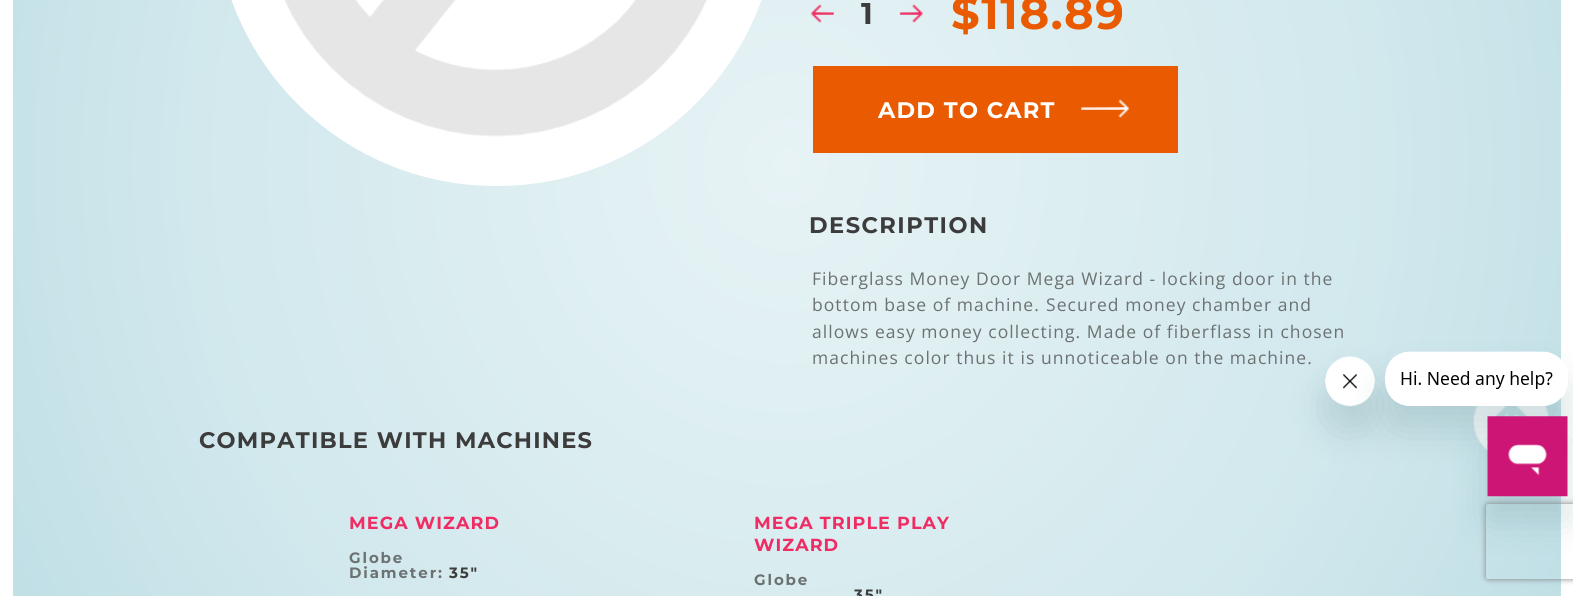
import math
import cairo

surface = cairo.ImageSurface(cairo.FORMAT_RGB24, 1573, 596)
cr = cairo.Context(surface)
options = cairo.FontOptions()
options.set_hint_metrics(cairo.HINT_METRICS_OFF)
options.set_hint_style(cairo.HINT_STYLE_NONE)
cr.set_font_options(options)
cr.set_miter_limit(4)


def rgb(code):
    cr.set_source_rgb(*(v / 255 for v in bytes.fromhex(code[-6:])))


def tracked(x, y, s, letter, word):
    cr.move_to(x, y)
    for ch in s:
        cr.show_text(ch)
        cr.rel_move_to(letter + word * (ch == ' '), 0)


def rrect(x, y, w, h, r):
    cr.new_sub_path()
    for i, (u, v) in enumerate([(x + w - r, y + h - r), (x + r, y + h - r), (x + r, y + r), (x + w - r, y + r)]):
        cr.arc(u, v, r, i * math.pi / 2, (i + 1) * math.pi / 2)
    cr.close_path()


def soft_shadow(x, y, w, h, r, blur, alpha):
    cr.push_group_with_content(cairo.CONTENT_ALPHA)
    cr.set_operator(cairo.OPERATOR_SOURCE)
    for i in range(15, -16, -2):
        e = blur * i / 6
        if min(w, h) + 2 * e > 0:
            cr.set_source_rgba(0, 0, 0, alpha * math.erfc((i - 1) / 8.5) / 2)
            rrect(x - e, y - e, w + 2 * e, h + 2 * e, max(0, min(r + e + blur * .6, min(w, h) / 2 + e)))
            cr.fill()
    cr.mask(cr.pop_group())


def image(path, x, y, w, h):
    cr.save()
    cr.set_source_surface(cairo.ImageSurface.create_from_png(path), x, y)
    cr.rectangle(x, y, w, h)
    cr.fill()
    cr.restore()


rgb("#ffffff")
cr.paint()
gradient = cairo.RadialGradient(0, 0, 0, 0, 0, 1)
gradient.set_matrix(cairo.Matrix(1 / 1117, 0, 0, 1 / 1195, -1 * 787 / 1117, -1 * 162 / 1195))
gradient.add_color_stop_rgba(0, 0.906, 0.953, 0.961, 1)
gradient.add_color_stop_rgba(0.54, 0.82, 0.91, 0.929, 1)
gradient.add_color_stop_rgba(1, 0.694, 0.847, 0.878, 1)
gradient.add_color_stop_rgba(1, 0.549, 0.776, 0.824, 1)
cr.set_source(gradient)
cr.rectangle(13, 0, 1548, 596)
cr.fill()
rgb("#ffffff")
rrect(215, -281, 563, 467, 281)
cr.fill()
image("img/1.png", 284, 0, 423, 137)
image("img/2.png", 811, 4, 23, 19)
image("img/3.png", 899, 4, 24, 19)
rgb("#ea5a00")
cr.rectangle(813, 66, 365, 87)
cr.fill()
image("img/4.png", 1081, 99, 48, 19)
image("img/5.png", 1473, 405, 76, 47)
rgb("#17494d")
soft_shadow(1325, 381, 50, 50, 25, 19, 0.15)
image("img/7.png", 1325, 356, 50, 51)
cr.save()
cr.set_fill_rule(cairo.FILL_RULE_EVEN_ODD)
cr.new_path()
cr.move_to(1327, 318)
cr.line_to(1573, 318)
cr.line_to(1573, 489)
cr.line_to(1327, 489)
cr.close_path()
cr.move_to(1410, 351)
cr.line_to(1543, 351)
cr.curve_to(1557, 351, 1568, 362, 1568, 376)
cr.line_to(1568, 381)
cr.curve_to(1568, 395, 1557, 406, 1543, 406)
cr.line_to(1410, 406)
cr.curve_to(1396, 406, 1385, 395, 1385, 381)
cr.line_to(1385, 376)
cr.curve_to(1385, 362, 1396, 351, 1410, 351)
cr.close_path()
cr.clip()
soft_shadow(1385, 376, 183, 55, 25, 19, 0.15)
cr.restore()
image("img/6.png", 1385, 351, 176, 55)
soft_shadow(1488, 441, 80, 80, 0, 19, 0.15)
cr.save()
cr.set_fill_rule(cairo.FILL_RULE_EVEN_ODD)
cr.new_path()
cr.move_to(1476, 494)
cr.line_to(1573, 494)
cr.line_to(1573, 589)
cr.line_to(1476, 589)
cr.close_path()
cr.move_to(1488.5, 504)
cr.line_to(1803.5, 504)
cr.curve_to(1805, 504, 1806, 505, 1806, 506.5)
cr.line_to(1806, 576.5)
cr.curve_to(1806, 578, 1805, 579, 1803.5, 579)
cr.line_to(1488.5, 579)
cr.curve_to(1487, 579, 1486, 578, 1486, 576.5)
cr.line_to(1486, 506.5)
cr.curve_to(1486, 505, 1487, 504, 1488.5, 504)
cr.close_path()
cr.clip()
rgb("#808080")
soft_shadow(1486, 504, 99, 75, 2.5, 3, 1)
cr.restore()
image("img/8.png", 1487, 416, 81, 81)
cr.select_font_face("Montserrat", cairo.FONT_SLANT_NORMAL, cairo.FONT_WEIGHT_BOLD)
cr.set_font_size(30)
rgb("#3c3c3c")
cr.move_to(861, 24)
cr.show_text("1")
cr.set_font_size(45)
rgb("#ea5a00")
tracked(951, 29, "$118.89", 1.5, 0)
cr.set_font_size(22.5)
rgb("#ffffff")
tracked(878, 118, "ADD TO CART", 1.25, 0)
rgb("#3c3c3c")
tracked(809, 233, "DESCRIPTION", 1.5, 0)
cr.select_font_face("Open Sans")
cr.set_font_size(17.5)
rgb("#6c7172")
for x, y, s in [
    (812, 285, "Fiberglass Money Door Mega Wizard - locking door in the"),
    (812, 311, "bottom base of machine."),
    (1046, 311, "Secured money chamber and"),
    (812, 338, "allows easy money collecting. Made of fiberflass in chosen"),
    (812, 364, "machines color thus it is unnoticeable on the machine."),
]:
    tracked(x, y, s, 1.05, 0)
cr.select_font_face("Montserrat", cairo.FONT_SLANT_NORMAL, cairo.FONT_WEIGHT_BOLD)
cr.set_font_size(22.5)
rgb("#3c3c3c")
tracked(199, 448, "COMPATIBLE WITH MACHINES", 1.25, 0)
cr.set_font_size(17.5)
rgb("#ef2c63")
tracked(349, 529, "MEGA WIZARD", 1.1, 0)
cr.set_font_size(15)
rgb("#6c7172")
tracked(349, 563, "Globe", 1.9, 0)
tracked(349, 578, "Diameter:", 1.9, 0)
rgb("#3c3c3c")
tracked(449, 578, "35\"", 1.9, 0)
cr.set_font_size(17.5)
rgb("#ef2c63")
tracked(754, 529, "MEGA TRIPLE PLAY", 1.1, 0)
tracked(754, 551, "WIZARD", 1.1, 0)
cr.set_font_size(15)
rgb("#6c7172")
tracked(754, 585, "Globe", 1.9, 0)
rgb("#3c3c3c")
tracked(854, 600, "35\"", 1.9, 0)
surface.write_to_png("page.png")
